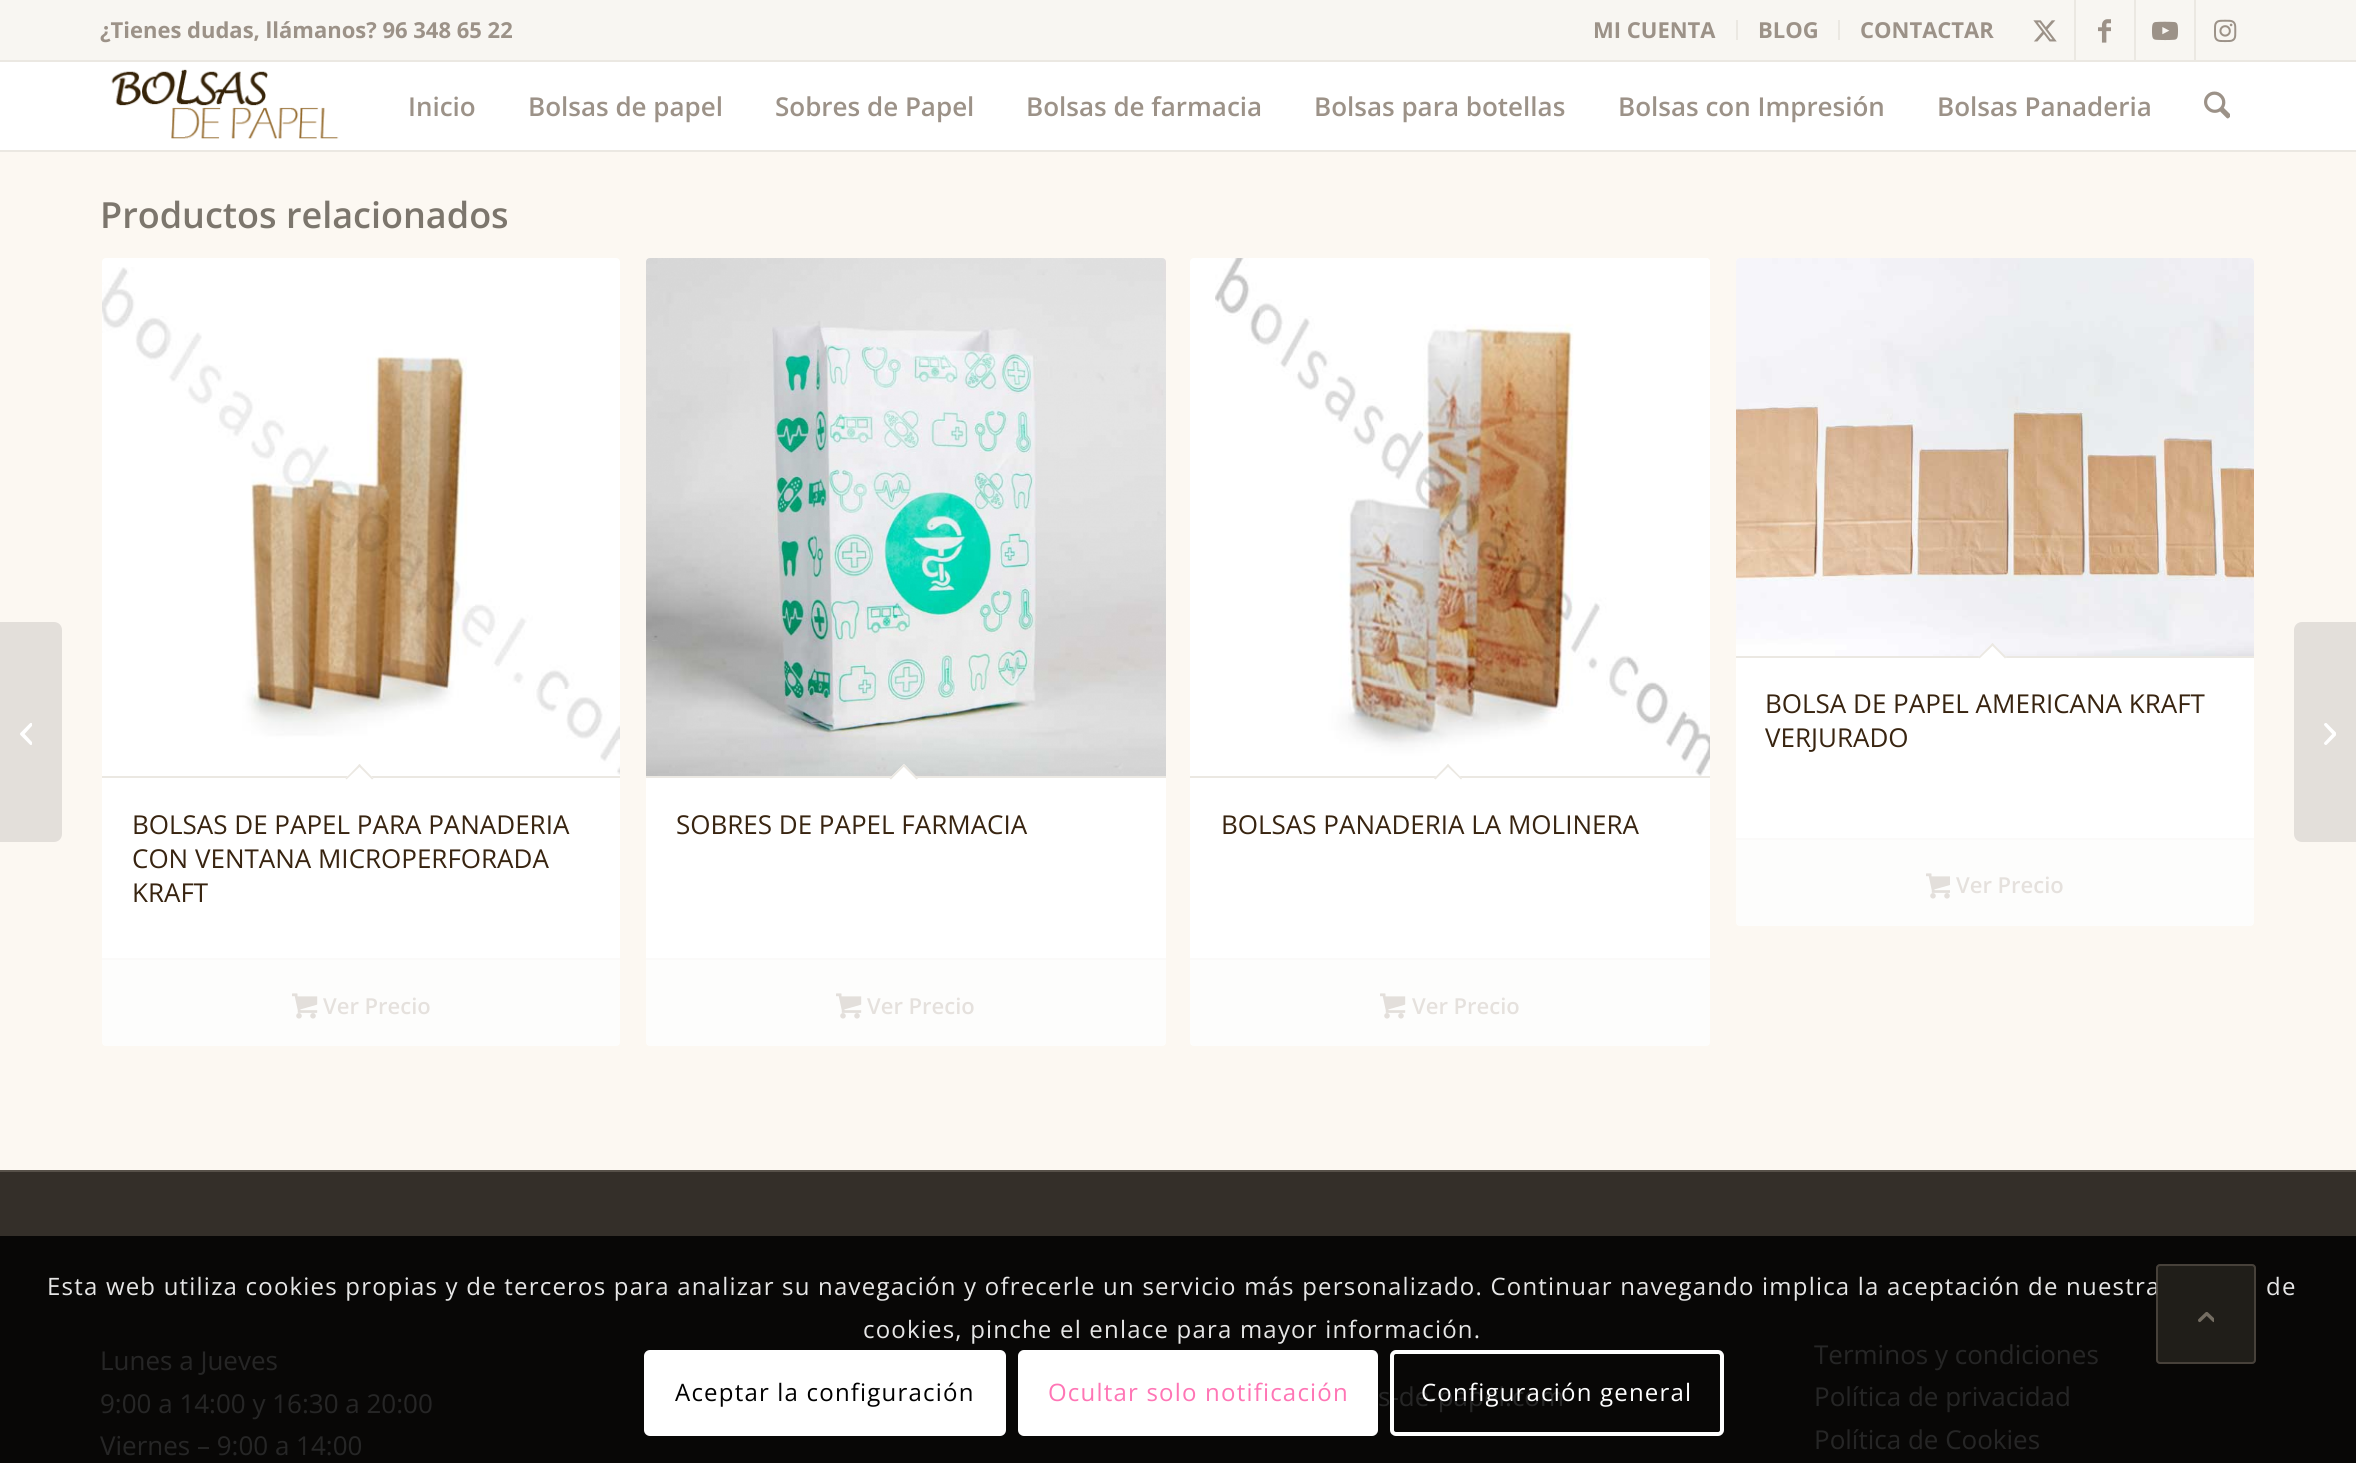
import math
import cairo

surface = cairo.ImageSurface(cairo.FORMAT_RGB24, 2356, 1463)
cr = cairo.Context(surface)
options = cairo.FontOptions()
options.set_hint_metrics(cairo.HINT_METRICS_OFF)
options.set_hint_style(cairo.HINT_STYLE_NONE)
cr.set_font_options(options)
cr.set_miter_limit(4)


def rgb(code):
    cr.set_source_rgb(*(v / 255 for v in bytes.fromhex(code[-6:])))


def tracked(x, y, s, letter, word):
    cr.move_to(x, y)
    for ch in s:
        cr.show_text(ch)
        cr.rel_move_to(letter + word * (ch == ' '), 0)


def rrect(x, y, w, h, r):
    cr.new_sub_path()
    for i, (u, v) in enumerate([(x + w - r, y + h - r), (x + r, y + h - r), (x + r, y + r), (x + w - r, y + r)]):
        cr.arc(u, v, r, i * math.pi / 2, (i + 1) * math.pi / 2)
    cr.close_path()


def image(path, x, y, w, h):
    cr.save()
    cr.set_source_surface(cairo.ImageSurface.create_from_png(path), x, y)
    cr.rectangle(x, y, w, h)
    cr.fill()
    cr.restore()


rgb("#ffffff")
cr.paint()
for x, y, w, h, color in [
    (0, 0, 2356, 60, "#f8f6f2"),
    (0, 60, 2356, 2, "#ebe8e2"),
    (1736, 20, 2, 20, "#ebe8e2"),
    (1838, 20, 2, 20, "#ebe8e2"),
    (2074, 0, 2, 60, "#ebe8e2"),
]:
    rgb(color)
    cr.rectangle(x, y, w, h)
    cr.fill()
image("img/1.png", 2033, 20, 24, 22)
cr.rectangle(2134, 0, 2, 60)
cr.fill()
image("img/2.png", 2098, 19, 13, 24)
cr.rectangle(2194, 0, 2, 60)
cr.fill()
image("img/3.png", 2152, 21, 26, 20)
image("img/4.png", 2214, 19, 23, 24)
cr.rectangle(0, 150, 2356, 2)
cr.fill()
image("img/5.png", 111, 69, 228, 70)
image("img/6.png", 2204, 91, 26, 28)
rgb("#fcf8f2")
cr.rectangle(0, 152, 2356, 1018)
cr.fill()
rgb("#e3dfda")
cr.new_path()
cr.move_to(0, 622)
cr.line_to(54, 622)
cr.curve_to(58.5, 622, 62, 625.5, 62, 630)
cr.line_to(62, 834)
cr.curve_to(62, 838.5, 58.5, 842, 54, 842)
cr.line_to(0, 842)
cr.close_path()
cr.fill()
image("img/7.png", 20, 723, 12, 22)
rgb("#ffffff")
rrect(1735, 257, 520, 670, 5)
cr.fill_preserve()
rgb("#fcf8f2")
cr.stroke()
image("img/8.png", 1736, 258, 518, 398)
rgb("#ebe8e2")
cr.rectangle(1736, 656, 518, 2)
cr.fill()
rgb("#ffffff")
cr.new_path()
cr.move_to(1992.5, 643)
cr.line_to(2006.5, 657)
cr.line_to(1992.5, 671.5)
cr.line_to(1978.5, 657)
cr.close_path()
cr.fill()
rgb("#ebe8e2")
cr.new_path()
cr.move_to(1992.5, 643)
cr.line_to(2006.5, 657)
cr.line_to(2005, 658.5)
cr.line_to(1991, 644.5)
cr.close_path()
cr.fill()
cr.new_path()
cr.move_to(1992.5, 643)
cr.line_to(1994, 644.5)
cr.line_to(1979.5, 658.5)
cr.line_to(1978.5, 657)
cr.close_path()
cr.fill()
cr.set_source_rgba(0.973, 0.965, 0.949, 0.2)
cr.new_path()
cr.move_to(1736, 838)
cr.line_to(2254, 838)
cr.line_to(2254, 922)
cr.curve_to(2254, 924, 2252, 926, 2250, 926)
cr.line_to(1740, 926)
cr.curve_to(1738, 926, 1736, 924, 1736, 922)
cr.close_path()
cr.fill()
rgb("#fbfaf9")
cr.rectangle(1736, 838, 518, 2)
cr.fill()
image("img/9.png", 1926, 873, 24, 26)
rgb("#ffffff")
rrect(101, 257, 520, 790, 5)
cr.fill_preserve()
rgb("#fcf8f2")
cr.stroke()
image("img/10.png", 102, 267, 518, 508)
rgb("#ebe8e2")
cr.rectangle(102, 776, 518, 2)
cr.fill()
rgb("#ffffff")
cr.new_path()
cr.move_to(359.5, 764)
cr.line_to(373.5, 778.5)
cr.line_to(359.5, 792.5)
cr.line_to(345.5, 778.5)
cr.close_path()
cr.fill()
rgb("#ebe8e2")
cr.new_path()
cr.move_to(359.5, 764)
cr.line_to(373.5, 778.5)
cr.line_to(372, 779.5)
cr.line_to(358, 765.5)
cr.close_path()
cr.fill()
cr.new_path()
cr.move_to(359.5, 764)
cr.line_to(361, 765.5)
cr.line_to(346.5, 779.5)
cr.line_to(345.5, 778.5)
cr.close_path()
cr.fill()
cr.set_source_rgba(0.973, 0.965, 0.949, 0.2)
cr.new_path()
cr.move_to(102, 958)
cr.line_to(620, 958)
cr.line_to(620, 1042)
cr.curve_to(620, 1044, 618, 1046, 616, 1046)
cr.line_to(106, 1046)
cr.curve_to(104, 1046, 102, 1044, 102, 1042)
cr.close_path()
cr.fill()
rgb("#fbfaf9")
cr.rectangle(102, 958, 518, 2)
cr.fill()
image("img/11.png", 292, 993, 26, 26)
rgb("#ffffff")
rrect(645, 257, 522, 790, 5)
cr.fill_preserve()
rgb("#fcf8f2")
cr.stroke()
image("img/12.png", 646, 258, 520, 518)
rgb("#ebe8e2")
cr.rectangle(646, 776, 520, 2)
cr.fill()
rgb("#ffffff")
cr.new_path()
cr.move_to(904, 764)
cr.line_to(918, 778.5)
cr.line_to(904, 792.5)
cr.line_to(889.5, 778.5)
cr.close_path()
cr.fill()
rgb("#ebe8e2")
cr.new_path()
cr.move_to(904, 764)
cr.line_to(918, 778.5)
cr.line_to(916.5, 779.5)
cr.line_to(902.5, 765.5)
cr.close_path()
cr.fill()
cr.new_path()
cr.move_to(904, 764)
cr.line_to(905, 765.5)
cr.line_to(891, 779.5)
cr.line_to(889.5, 778.5)
cr.close_path()
cr.fill()
cr.set_source_rgba(0.973, 0.965, 0.949, 0.2)
cr.new_path()
cr.move_to(646, 958)
cr.line_to(1166, 958)
cr.line_to(1166, 1042)
cr.curve_to(1166, 1044, 1164, 1046, 1162, 1046)
cr.line_to(650, 1046)
cr.curve_to(648, 1046, 646, 1044, 646, 1042)
cr.close_path()
cr.fill()
rgb("#fbfaf9")
cr.rectangle(646, 958, 520, 2)
cr.fill()
image("img/11.png", 836, 993, 26, 26)
rgb("#ffffff")
rrect(1189, 257, 522, 790, 5)
cr.fill_preserve()
rgb("#fcf8f2")
cr.stroke()
image("img/13.png", 1215, 258, 495, 518)
rgb("#ebe8e2")
cr.rectangle(1190, 776, 520, 2)
cr.fill()
rgb("#ffffff")
cr.new_path()
cr.move_to(1448, 764)
cr.line_to(1462, 778.5)
cr.line_to(1448, 792.5)
cr.line_to(1434, 778.5)
cr.close_path()
cr.fill()
rgb("#ebe8e2")
cr.new_path()
cr.move_to(1448, 764)
cr.line_to(1462, 778.5)
cr.line_to(1461, 779.5)
cr.line_to(1446.5, 765.5)
cr.close_path()
cr.fill()
cr.new_path()
cr.move_to(1448, 764)
cr.line_to(1449.5, 765.5)
cr.line_to(1435.5, 779.5)
cr.line_to(1434, 778.5)
cr.close_path()
cr.fill()
cr.set_source_rgba(0.973, 0.965, 0.949, 0.2)
cr.new_path()
cr.move_to(1190, 958)
cr.line_to(1710, 958)
cr.line_to(1710, 1042)
cr.curve_to(1710, 1044, 1708, 1046, 1706, 1046)
cr.line_to(1194, 1046)
cr.curve_to(1192, 1046, 1190, 1044, 1190, 1042)
cr.close_path()
cr.fill()
rgb("#fbfaf9")
cr.rectangle(1190, 958, 520, 2)
cr.fill()
image("img/11.png", 1380, 993, 26, 26)
for x, y, w, h, color in [
    (0, 1172, 2356, 64, "#342f29"),
    (0, 1236, 2356, 227, "#080706"),
    (0, 1170, 2356, 2, "#575149"),
]:
    rgb(color)
    cr.rectangle(x, y, w, h)
    cr.fill()
rgb("#e3dfda")
cr.new_path()
cr.move_to(2302, 622)
cr.line_to(2356, 622)
cr.line_to(2356, 842)
cr.line_to(2302, 842)
cr.curve_to(2297.5, 842, 2294, 838.5, 2294, 834)
cr.line_to(2294, 630)
cr.curve_to(2294, 625.5, 2297.5, 622, 2302, 622)
cr.close_path()
cr.fill()
image("img/14.png", 2324, 723, 12, 22)
rgb("#ffffff")
rrect(644, 1350, 362, 86, 6)
cr.fill()
rrect(1020, 1352, 356, 82, 4)
cr.fill_preserve()
cr.set_line_width(4)
cr.stroke()
cr.select_font_face("Open Sans", cairo.FONT_SLANT_NORMAL, cairo.FONT_WEIGHT_BOLD)
cr.set_font_size(22)
rgb("#9c9288")
for x, y, s in [
    (100, 38, "¿Tienes dudas, llámanos? 96 348 65 22"),
    (1593, 38, "MI CUENTA"),
    (1758, 38, "BLOG"),
    (1860, 38, "CONTACTAR"),
]:
    cr.move_to(x, y)
    cr.show_text(s)
cr.select_font_face("Open Sans SemiBold")
cr.set_font_size(26)
for x, y, s in [
    (408, 116, "Inicio"),
    (528, 116, "Bolsas de papel"),
    (775, 116, "Sobres de Papel"),
    (1026, 116, "Bolsas de farmacia"),
    (1314, 116, "Bolsas para botellas"),
    (1618, 116, "Bolsas con Impresión"),
    (1937, 116, "Bolsas Panaderia"),
]:
    cr.move_to(x, y)
    cr.show_text(s)
cr.set_font_size(36)
rgb("#7c766d")
cr.move_to(100, 228)
cr.show_text("Productos relacionados")
cr.select_font_face("Open Sans")
cr.set_font_size(26)
rgb("#382410")
cr.move_to(1765, 713)
cr.show_text("BOLSA DE PAPEL AMERICANA KRAFT")
cr.move_to(1765, 747)
cr.show_text("VERJURADO")
cr.select_font_face("Open Sans SemiBold")
cr.set_font_size(22)
rgb("#e5e1dd")
cr.move_to(1956, 893)
cr.show_text("Ver Precio")
cr.select_font_face("Open Sans")
cr.set_font_size(26)
rgb("#382410")
for x, y, s in [
    (132, 834, "BOLSAS DE PAPEL PARA PANADERIA"),
    (132, 868, "CON VENTANA MICROPERFORADA"),
    (132, 902, "KRAFT"),
]:
    cr.move_to(x, y)
    cr.show_text(s)
cr.select_font_face("Open Sans SemiBold")
cr.set_font_size(22)
rgb("#e5e1dd")
cr.move_to(323, 1014)
cr.show_text("Ver Precio")
cr.select_font_face("Open Sans")
cr.set_font_size(26)
rgb("#382410")
cr.move_to(676, 834)
cr.show_text("SOBRES DE PAPEL FARMACIA")
cr.select_font_face("Open Sans SemiBold")
cr.set_font_size(22)
rgb("#e5e1dd")
cr.move_to(867, 1014)
cr.show_text("Ver Precio")
cr.select_font_face("Open Sans")
cr.set_font_size(26)
rgb("#382410")
cr.move_to(1221, 834)
cr.show_text("BOLSAS PANADERIA LA MOLINERA")
cr.select_font_face("Open Sans SemiBold")
cr.set_font_size(22)
rgb("#e5e1dd")
cr.move_to(1412, 1014)
cr.show_text("Ver Precio")
cr.select_font_face("Open Sans")
cr.set_font_size(26)
rgb("#262626")
for x, y, s in [
    (100, 1370, "Lunes a Jueves"),
    (100, 1413, "9:00 a 14:00 y 16:30 a 20:00"),
    (100, 1455, "Viernes – 9:00 a 14:00"),
    (1378, 1406, "s-de-papel.com"),
    (1814, 1364, "Terminos y condiciones"),
    (1814, 1406, "Política de privacidad"),
    (1814, 1449, "Política de Cookies"),
]:
    cr.move_to(x, y)
    cr.show_text(s)
cr.set_font_size(24)
rgb("#e6e6e6")
tracked(47, 1295, "Esta web utiliza cookies propias y de terceros para analizar su navegación y ofrecerle un servicio más personalizado. Continuar navegando implica la aceptación de nuestra", 1.2, 0)
cr.set_source_rgba(0.169, 0.157, 0.133, 0.7)
rrect(2156, 1264, 100, 100, 4)
cr.fill()
rrect(2157, 1265, 98, 98, 3)
cr.set_source_rgba(0.341, 0.318, 0.286, 0.7)
cr.set_line_width(2)
cr.stroke()
image("img/15.png", 2198, 1312, 16, 11)
rgb("#e6e6e6")
tracked(2266, 1295, "de", 1.2, 0)
tracked(863, 1338, "cookies, pinche el enlace para mayor información.", 1.2, 0)
rgb("#000000")
tracked(675, 1401, "Aceptar la configuración", 1.2, 0)
rgb("#ff75b5")
tracked(1048, 1401, "Ocultar solo notificación", 1.2, 0)
rrect(1392, 1352, 330, 82, 4)
rgb("#ffffff")
cr.set_line_width(4)
cr.stroke()
tracked(1421, 1401, "Configuración general", 1.2, 0)
surface.write_to_png("page.png")
